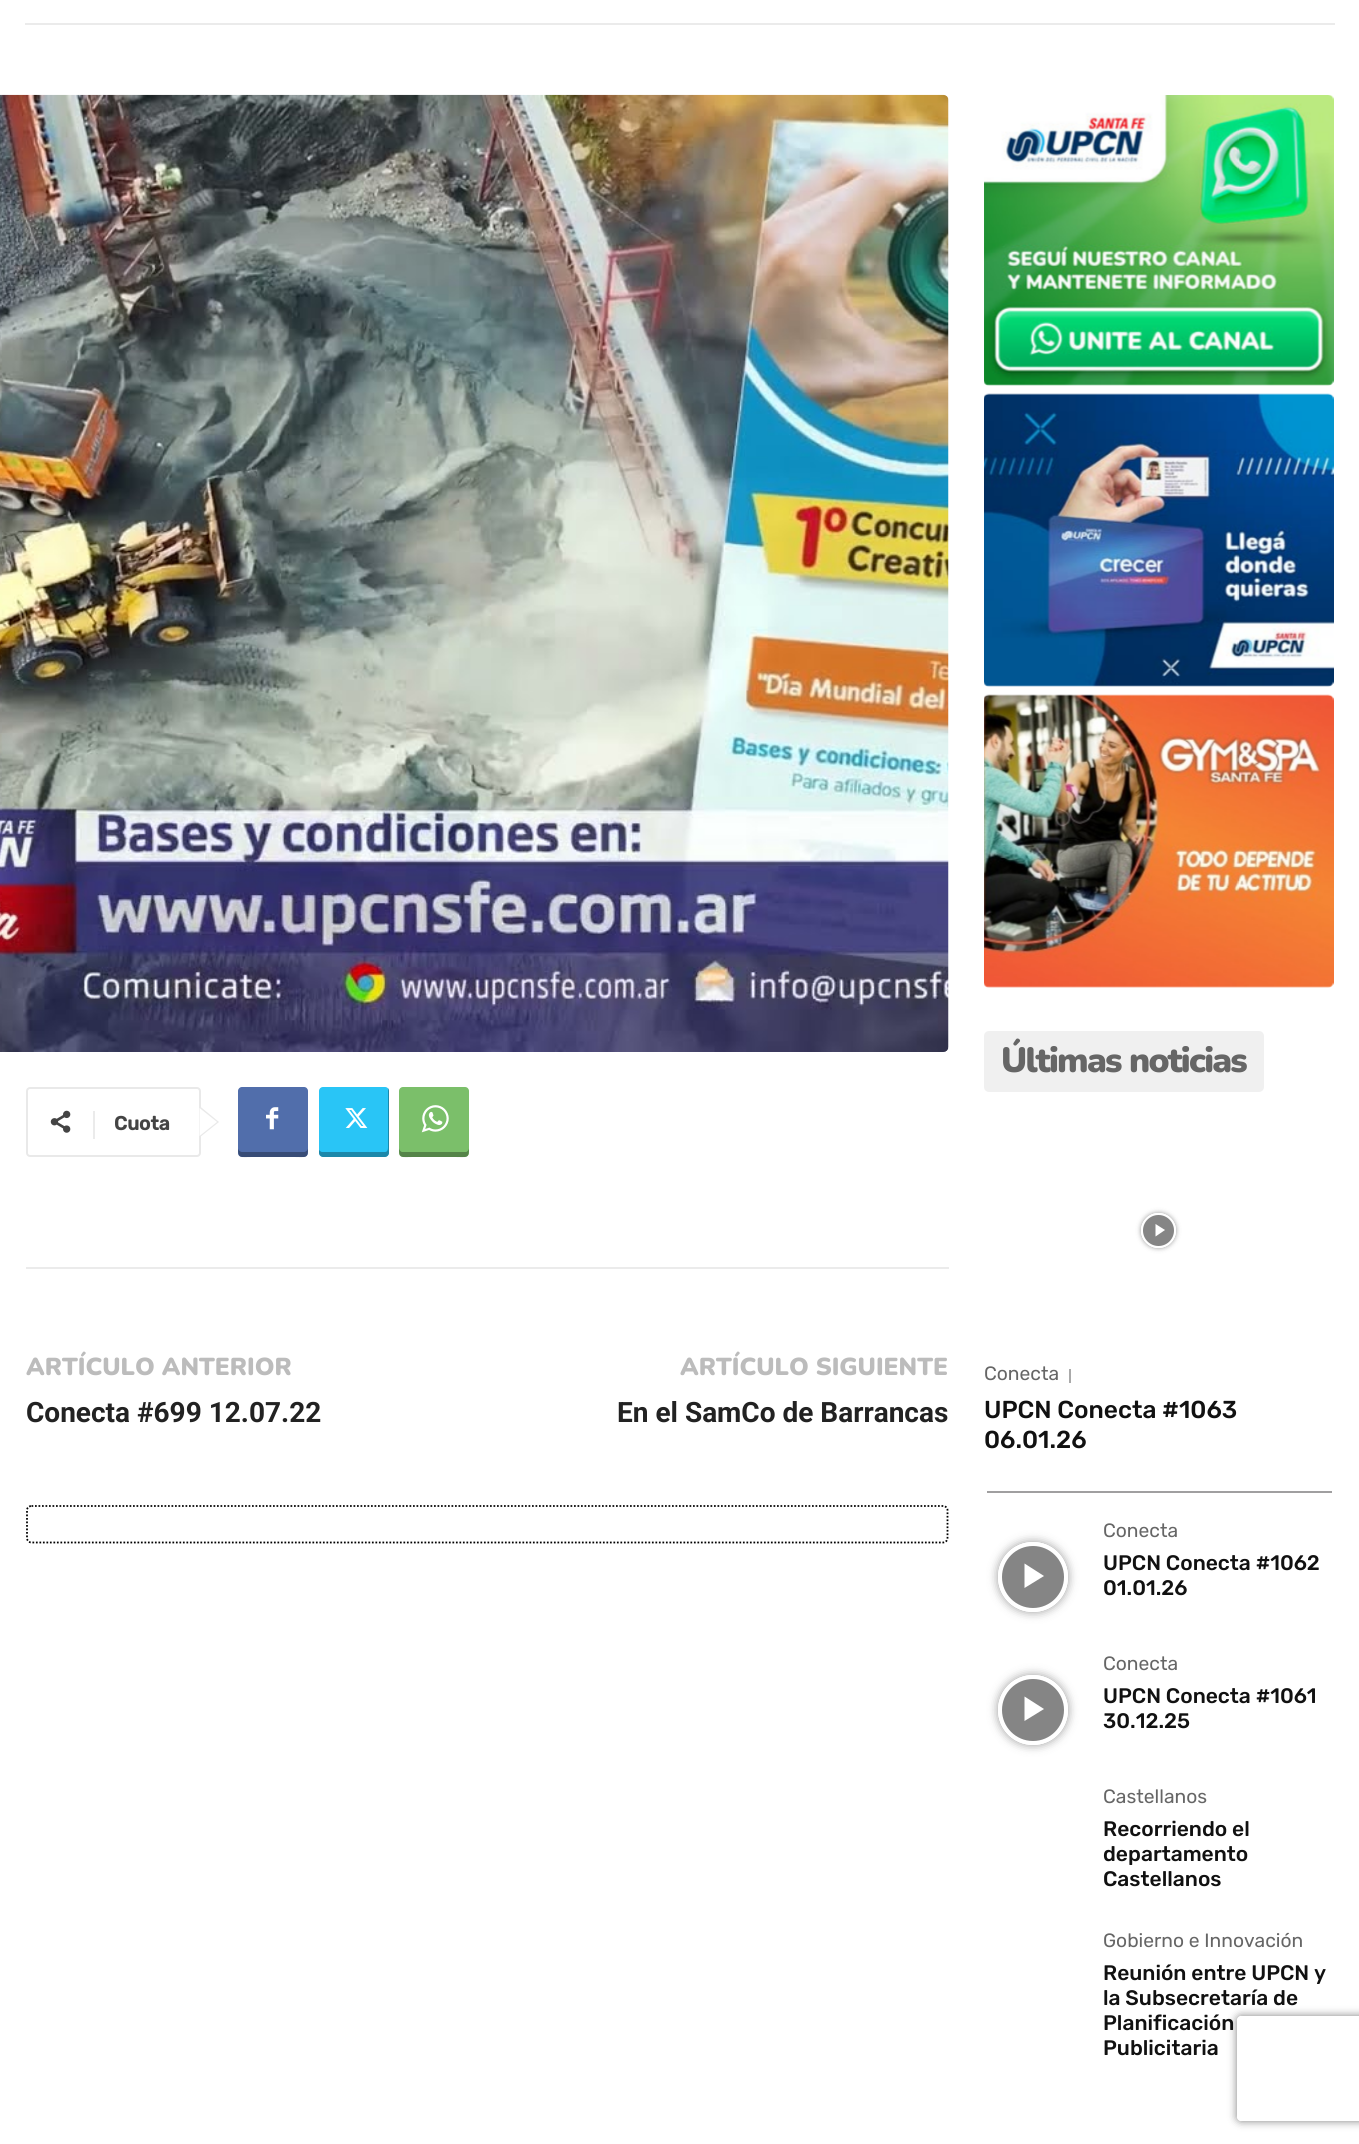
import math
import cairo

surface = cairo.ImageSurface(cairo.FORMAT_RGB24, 1359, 2144)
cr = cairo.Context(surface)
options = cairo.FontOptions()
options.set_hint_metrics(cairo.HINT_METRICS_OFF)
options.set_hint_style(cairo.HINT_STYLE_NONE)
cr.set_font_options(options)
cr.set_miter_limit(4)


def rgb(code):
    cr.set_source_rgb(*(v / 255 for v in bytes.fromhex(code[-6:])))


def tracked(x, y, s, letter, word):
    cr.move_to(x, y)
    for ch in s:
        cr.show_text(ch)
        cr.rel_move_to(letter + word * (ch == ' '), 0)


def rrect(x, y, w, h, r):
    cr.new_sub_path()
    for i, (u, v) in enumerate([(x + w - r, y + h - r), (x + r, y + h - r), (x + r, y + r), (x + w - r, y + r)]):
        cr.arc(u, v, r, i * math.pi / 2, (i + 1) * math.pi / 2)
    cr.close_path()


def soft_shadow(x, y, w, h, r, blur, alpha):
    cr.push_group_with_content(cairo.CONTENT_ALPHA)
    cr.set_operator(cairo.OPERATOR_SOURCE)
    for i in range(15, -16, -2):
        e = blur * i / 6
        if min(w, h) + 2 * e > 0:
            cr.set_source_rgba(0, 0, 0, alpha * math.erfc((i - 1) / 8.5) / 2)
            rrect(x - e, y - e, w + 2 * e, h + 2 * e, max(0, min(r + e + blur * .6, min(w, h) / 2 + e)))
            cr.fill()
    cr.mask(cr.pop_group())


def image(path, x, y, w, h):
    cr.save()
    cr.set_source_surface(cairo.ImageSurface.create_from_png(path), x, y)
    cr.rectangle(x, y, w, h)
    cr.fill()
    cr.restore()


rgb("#ffffff")
cr.paint()
rgb("#ebebeb")
cr.rectangle(25, 23, 1310, 2)
cr.fill()
image("img/1.png", 0, 94, 949, 958)
rrect(27, 1088, 173, 68, 3)
rgb("#e9e9e9")
cr.stroke()
cr.new_path()
cr.move_to(199.5, 1137.5)
cr.line_to(199.5, 1106)
cr.line_to(219, 1122)
cr.close_path()
cr.fill()
image("img/2.png", 50, 1110, 21, 23)
rgb("#ebebeb")
cr.rectangle(93, 1111, 2, 28)
cr.fill()
rgb("#ffffff")
cr.new_path()
cr.move_to(199.5, 1136)
cr.line_to(199.5, 1108)
cr.line_to(217, 1122)
cr.close_path()
cr.fill()
rgb("#516eab")
rrect(238, 1087, 70, 70, 4)
cr.fill()
cr.set_source_rgba(0, 0, 0, 0.31)
cr.new_path()
cr.move_to(238, 1148)
cr.curve_to(238, 1159, 240, 1157, 252, 1157)
cr.line_to(294, 1157)
cr.curve_to(306, 1157, 308, 1159, 308, 1148)
cr.curve_to(308, 1150, 306, 1152, 304, 1152)
cr.line_to(242, 1152)
cr.curve_to(240, 1152, 238, 1150, 238, 1148)
cr.close_path()
cr.fill()
image("img/3.png", 266, 1107, 13, 23)
rgb("#29c5f6")
rrect(319, 1087, 70, 70, 4)
cr.fill()
cr.set_source_rgba(0, 0, 0, 0.31)
cr.new_path()
cr.move_to(319, 1150)
cr.line_to(319, 1153)
cr.curve_to(319, 1155, 321, 1157, 323, 1157)
cr.line_to(385, 1157)
cr.curve_to(387, 1157, 389, 1155, 389, 1153)
cr.line_to(389, 1091)
cr.curve_to(389, 1090, 389, 1089, 388, 1088)
cr.line_to(388, 1148)
cr.curve_to(388, 1150, 387, 1152, 385, 1152)
cr.line_to(322, 1152)
cr.curve_to(321, 1152, 320, 1151, 319, 1150)
cr.close_path()
cr.fill()
image("img/4.png", 345, 1108, 23, 20)
rgb("#7bbf6a")
rrect(399, 1087, 70, 70, 4)
cr.fill()
cr.set_source_rgba(0, 0, 0, 0.31)
cr.new_path()
cr.move_to(399, 1148)
cr.curve_to(399, 1159, 401, 1157, 413, 1157)
cr.line_to(455, 1157)
cr.curve_to(467, 1157, 469, 1159, 469, 1148)
cr.curve_to(469, 1150, 467, 1152, 466, 1152)
cr.line_to(402, 1152)
cr.curve_to(401, 1152, 399, 1150, 399, 1148)
cr.close_path()
cr.fill()
image("img/5.png", 421, 1105, 28, 28)
rgb("#ebebeb")
cr.rectangle(26, 1267, 923, 2)
cr.fill()
cr.new_path()
cr.move_to(31.5, 1506)
cr.line_to(943, 1506)
cr.curve_to(945.5, 1506, 947.5, 1508, 947.5, 1510)
cr.line_to(947.5, 1538)
cr.curve_to(947.5, 1540.5, 945.5, 1542.5, 943, 1542.5)
cr.line_to(31.5, 1542.5)
cr.curve_to(29, 1542.5, 27, 1540.5, 27, 1538)
cr.line_to(27, 1510)
cr.curve_to(27, 1508, 29, 1506, 31.5, 1506)
cr.close_path()
rgb("#000000")
cr.set_line_width(1.8)
cr.set_dash([1.75, 1.75])
cr.stroke()
image("img/6.png", 984, 95, 350, 291)
image("img/7.png", 984, 393, 350, 294)
image("img/8.png", 984, 694, 350, 294)
rgb("#f0f0f0")
rrect(984, 1031, 280, 61, 5)
cr.fill()
rgb("#a09fa0")
cr.rectangle(987, 1491, 345, 2)
cr.fill()
cr.save()
cr.set_fill_rule(cairo.FILL_RULE_EVEN_ODD)
cr.new_path()
cr.move_to(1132, 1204)
cr.line_to(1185, 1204)
cr.line_to(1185, 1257)
cr.line_to(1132, 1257)
cr.close_path()
cr.move_to(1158.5, 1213)
cr.curve_to(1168, 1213, 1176, 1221, 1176, 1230.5)
cr.curve_to(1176, 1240, 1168, 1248, 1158.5, 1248)
cr.curve_to(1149, 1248, 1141, 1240, 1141, 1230.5)
cr.curve_to(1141, 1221, 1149, 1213, 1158.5, 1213)
cr.close_path()
cr.clip()
rgb("#000000")
soft_shadow(1141, 1213, 35, 35, 17.5, 2.5, 0.4)
cr.restore()
cr.set_source_rgba(0, 0, 0, 0.48)
cr.arc(1158.5, 1230.5, 16.5, 0, 2 * math.pi)
cr.fill_preserve()
rgb("#ffffff")
cr.set_line_width(2)
cr.set_dash([])
cr.stroke()
cr.new_path()
cr.move_to(1155.5, 1224)
cr.line_to(1155.5, 1236.5)
cr.line_to(1165, 1230)
cr.close_path()
cr.fill()
rgb("#aaaaaa")
cr.rectangle(1069, 1369, 2, 14)
cr.fill()
cr.save()
cr.set_fill_rule(cairo.FILL_RULE_EVEN_ODD)
cr.new_path()
cr.move_to(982, 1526)
cr.line_to(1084, 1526)
cr.line_to(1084, 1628)
cr.line_to(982, 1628)
cr.close_path()
cr.move_to(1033, 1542)
cr.curve_to(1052.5, 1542, 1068, 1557.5, 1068, 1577)
cr.curve_to(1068, 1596.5, 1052.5, 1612, 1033, 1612)
cr.curve_to(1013.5, 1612, 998, 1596.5, 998, 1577)
cr.curve_to(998, 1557.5, 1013.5, 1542, 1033, 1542)
cr.close_path()
cr.clip()
rgb("#000000")
soft_shadow(998, 1542, 70, 70, 35, 5, 0.4)
cr.restore()
cr.set_source_rgba(0, 0, 0, 0.48)
cr.arc(1033, 1577, 33, 0, 2 * math.pi)
cr.fill_preserve()
rgb("#ffffff")
cr.set_line_width(4)
cr.stroke()
cr.new_path()
cr.move_to(1024.5, 1563.5)
cr.line_to(1024.5, 1588)
cr.line_to(1044, 1576)
cr.close_path()
cr.fill()
cr.save()
cr.set_fill_rule(cairo.FILL_RULE_EVEN_ODD)
cr.new_path()
cr.move_to(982, 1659)
cr.line_to(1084, 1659)
cr.line_to(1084, 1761)
cr.line_to(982, 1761)
cr.close_path()
cr.move_to(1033, 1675)
cr.curve_to(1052.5, 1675, 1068, 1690.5, 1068, 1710)
cr.curve_to(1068, 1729.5, 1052.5, 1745, 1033, 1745)
cr.curve_to(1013.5, 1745, 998, 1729.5, 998, 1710)
cr.curve_to(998, 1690.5, 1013.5, 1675, 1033, 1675)
cr.close_path()
cr.clip()
rgb("#000000")
soft_shadow(998, 1675, 70, 70, 35, 5, 0.4)
cr.restore()
cr.set_source_rgba(0, 0, 0, 0.48)
cr.arc(1033, 1710, 33, 0, 2 * math.pi)
cr.fill_preserve()
rgb("#ffffff")
cr.stroke()
cr.new_path()
cr.move_to(1024.5, 1696.5)
cr.line_to(1024.5, 1721)
cr.line_to(1044, 1709)
cr.close_path()
cr.fill()
cr.save()
cr.set_fill_rule(cairo.FILL_RULE_EVEN_ODD)
cr.new_path()
cr.move_to(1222, 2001)
cr.line_to(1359, 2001)
cr.line_to(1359, 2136)
cr.line_to(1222, 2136)
cr.close_path()
cr.move_to(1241, 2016)
cr.line_to(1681, 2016)
cr.curve_to(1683, 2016, 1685, 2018, 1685, 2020)
cr.line_to(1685, 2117)
cr.curve_to(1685, 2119, 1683, 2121, 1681, 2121)
cr.line_to(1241, 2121)
cr.curve_to(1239, 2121, 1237, 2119, 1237, 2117)
cr.line_to(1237, 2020)
cr.curve_to(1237, 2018, 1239, 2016, 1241, 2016)
cr.close_path()
cr.clip()
rgb("#808080")
soft_shadow(1237, 2016, 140, 105, 4, 4.5, 1)
cr.restore()
cr.select_font_face("Rubik", cairo.FONT_SLANT_NORMAL, cairo.FONT_WEIGHT_BOLD)
cr.set_font_size(19.25)
rgb("#444444")
cr.move_to(114, 1130)
cr.show_text("Cuota")
cr.select_font_face("Nunito Black")
cr.set_font_size(24.5)
rgb("#bcbcbc")
cr.move_to(26, 1375)
cr.show_text("ARTÍCULO ANTERIOR")
cr.select_font_face("Roboto", cairo.FONT_SLANT_NORMAL, cairo.FONT_WEIGHT_BOLD)
cr.set_font_size(28)
rgb("#222222")
cr.move_to(26, 1422)
cr.show_text("Conecta #699 12.07.22")
cr.select_font_face("Nunito Black")
cr.set_font_size(24.5)
rgb("#bcbcbc")
cr.move_to(680, 1375)
cr.show_text("ARTÍCULO SIGUIENTE")
cr.select_font_face("Roboto", cairo.FONT_SLANT_NORMAL, cairo.FONT_WEIGHT_BOLD)
cr.set_font_size(28)
rgb("#222222")
cr.move_to(617, 1422)
cr.show_text("En el SamCo de Barrancas")
cr.select_font_face("Nunito Black")
cr.set_font_size(35)
rgb("#666666")
tracked(1001, 1072, "Últimas noticias", -1.75, 0)
cr.select_font_face("Rubik")
cr.set_font_size(19.25)
cr.move_to(984, 1380)
cr.show_text("Conecta")
cr.select_font_face("Rubik Medium")
cr.set_font_size(24.5)
rgb("#111111")
cr.move_to(984, 1418)
cr.show_text("UPCN Conecta #1063")
cr.move_to(984, 1448)
cr.show_text("06.01.26")
cr.select_font_face("Rubik")
cr.set_font_size(19.25)
rgb("#666666")
cr.move_to(1103, 1537)
cr.show_text("Conecta")
cr.select_font_face("Rubik Medium")
cr.set_font_size(21)
rgb("#111111")
cr.move_to(1103, 1570)
cr.show_text("UPCN Conecta #1062")
cr.move_to(1103, 1595)
cr.show_text("01.01.26")
cr.select_font_face("Rubik")
cr.set_font_size(19.25)
rgb("#666666")
cr.move_to(1103, 1670)
cr.show_text("Conecta")
cr.select_font_face("Rubik Medium")
cr.set_font_size(21)
rgb("#111111")
cr.move_to(1103, 1703)
cr.show_text("UPCN Conecta #1061")
cr.move_to(1103, 1728)
cr.show_text("30.12.25")
cr.select_font_face("Rubik")
cr.set_font_size(19.25)
rgb("#666666")
cr.move_to(1103, 1803)
cr.show_text("Castellanos")
cr.select_font_face("Rubik Medium")
cr.set_font_size(21)
rgb("#111111")
for x, y, s in [
    (1103, 1836, "Recorriendo el"),
    (1103, 1861, "departamento"),
    (1103, 1886, "Castellanos"),
]:
    cr.move_to(x, y)
    cr.show_text(s)
cr.select_font_face("Rubik")
cr.set_font_size(19.25)
rgb("#666666")
cr.move_to(1103, 1947)
cr.show_text("Gobierno e Innovación")
cr.select_font_face("Rubik Medium")
cr.set_font_size(21)
rgb("#111111")
for x, y, s in [
    (1103, 1980, "Reunión entre UPCN y"),
    (1103, 2005, "la Subsecretaría de"),
    (1103, 2030, "Planificación"),
    (1103, 2055, "Publicitaria"),
]:
    cr.move_to(x, y)
    cr.show_text(s)
surface.write_to_png("page.png")
